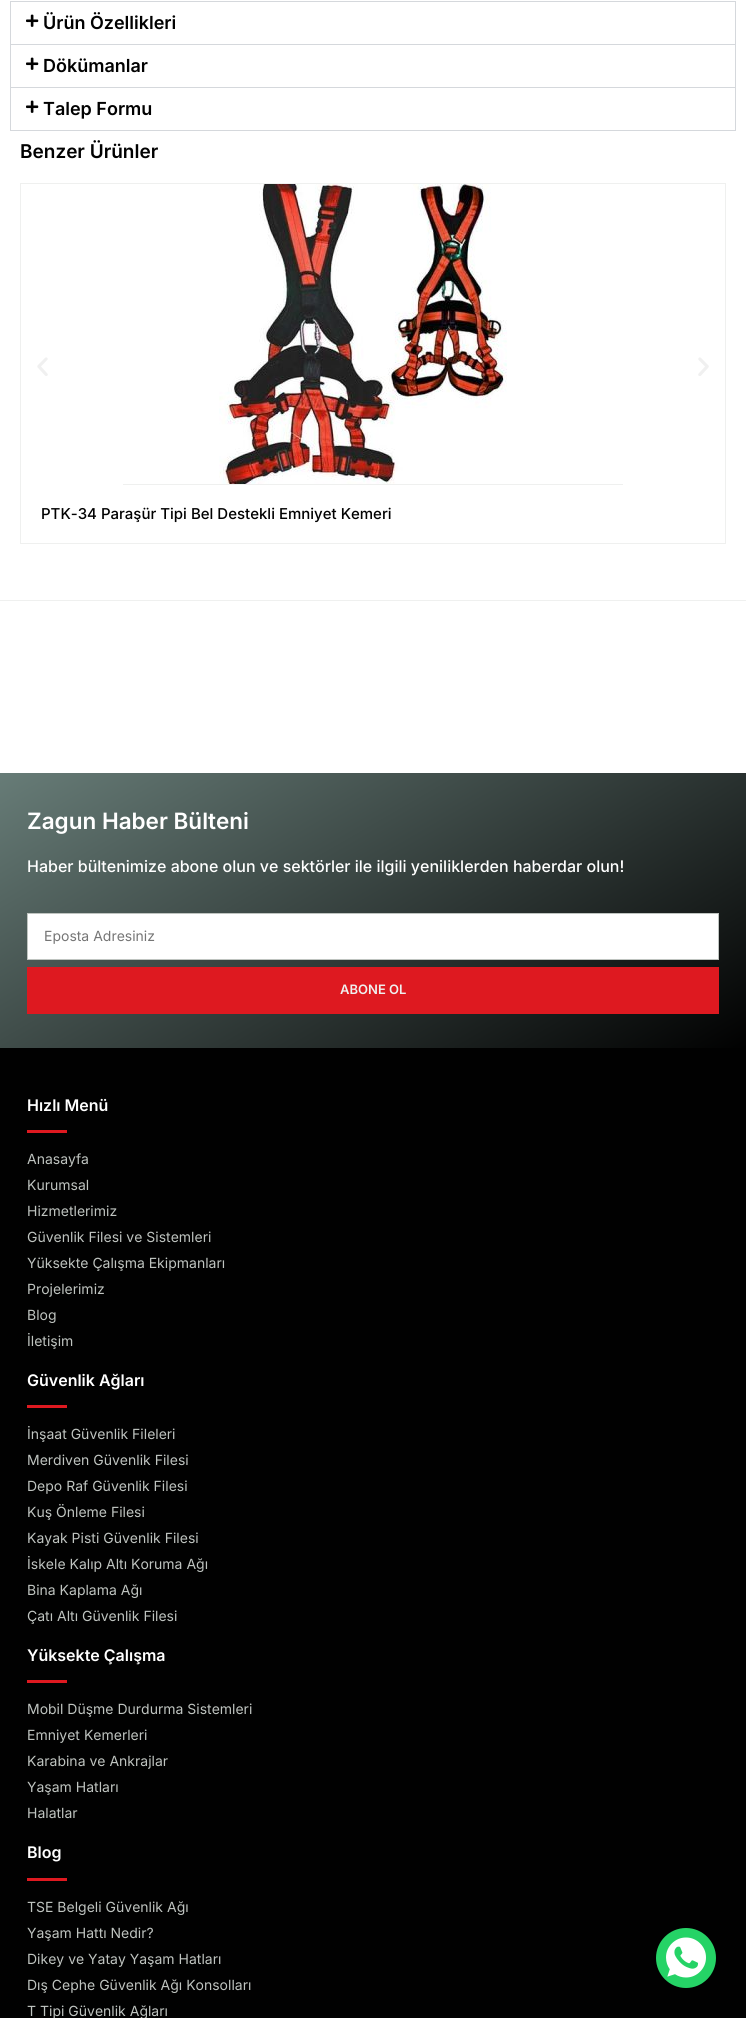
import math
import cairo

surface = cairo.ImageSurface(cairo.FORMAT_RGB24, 746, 2018)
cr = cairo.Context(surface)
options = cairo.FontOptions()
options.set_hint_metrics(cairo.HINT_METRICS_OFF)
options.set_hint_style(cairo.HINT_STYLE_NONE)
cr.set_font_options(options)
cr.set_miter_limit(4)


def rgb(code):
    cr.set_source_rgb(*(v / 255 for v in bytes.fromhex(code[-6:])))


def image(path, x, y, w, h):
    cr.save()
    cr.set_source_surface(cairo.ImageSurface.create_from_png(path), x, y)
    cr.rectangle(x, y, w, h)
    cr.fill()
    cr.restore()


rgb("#ffffff")
cr.paint()
cr.rectangle(10.5, 1.5, 725, 43)
rgb("#d5d8dc")
cr.set_line_width(1)
cr.stroke()
image("img/1.png", 26, 14, 13, 13)
for x, y, w, h, color in [
    (735, 45, 1, 86, "#d5d8dc"),
    (10, 87, 726, 1, "#d5d8dc"),
    (10, 45, 1, 43, "#d5d8dc"),
]:
    rgb(color)
    cr.rectangle(x, y, w, h)
    cr.fill()
image("img/1.png", 26, 57, 13, 13)
cr.rectangle(10, 130, 726, 1)
cr.fill()
cr.rectangle(10, 88, 1, 43)
cr.fill()
image("img/1.png", 26, 100, 13, 13)
cr.rectangle(20.5, 183.5, 705, 360)
rgb("#eff0ef")
cr.stroke()
image("img/2.png", 37, 357, 11, 19)
image("img/3.png", 698, 357, 11, 19)
cr.rectangle(123, 484, 500, 1)
cr.fill()
image("img/4.png", 219, 184, 288, 300)
cr.rectangle(0, 600, 746, 1)
cr.fill()
gradient = cairo.LinearGradient(220, 646, 526, 1175)
gradient.add_color_stop_rgba(0, 0.404, 0.486, 0.467, 1)
gradient.add_color_stop_rgba(1, 0.004, 0.004, 0.004, 1)
cr.set_source(gradient)
cr.rectangle(0, 773, 746, 275)
cr.fill()
rgb("#ffffff")
cr.rectangle(27.5, 913.5, 691, 46)
cr.fill_preserve()
rgb("#bfc4c0")
cr.stroke()
for x, y, w, h, color in [
    (27, 967, 692, 47, "#de1920"),
    (0, 1048, 746, 970, "#010101"),
    (27, 1130, 40, 3, "#de1920"),
    (27, 1405, 40, 3, "#de1920"),
    (27, 1680, 40, 3, "#de1920"),
    (27, 1878, 40, 3, "#de1920"),
]:
    rgb(color)
    cr.rectangle(x, y, w, h)
    cr.fill()
rgb("#25d366")
cr.arc(686, 1958, 30, 0, 2 * math.pi)
cr.fill()
image("img/5.png", 666, 1937, 40, 41)
cr.select_font_face("Inter SemiBold")
cr.set_font_size(18)
rgb("#010101")
for x, y, s in [
    (43, 29, "Ürün Özellikleri"),
    (43, 72, "Dökümanlar"),
    (43, 115, "Talep Formu"),
]:
    cr.move_to(x, y)
    cr.show_text(s)
cr.set_font_size(19)
cr.move_to(20, 158)
cr.show_text("Benzer Ürünler")
cr.select_font_face("Inter Medium")
cr.set_font_size(15)
cr.move_to(41, 519)
cr.show_text("PTK-34 Paraşür Tipi Bel Destekli Emniyet Kemeri")
cr.select_font_face("Inter SemiBold")
cr.set_font_size(22.5)
rgb("#ffffff")
cr.move_to(27, 829)
cr.show_text("Zagun Haber Bülteni")
cr.select_font_face("Inter Medium")
cr.set_font_size(16)
cr.move_to(27, 872)
cr.show_text("Haber bültenimize abone olun ve sektörler ile ilgili yeniliklerden haberdar olun!")
cr.select_font_face("Inter")
cr.set_font_size(14)
rgb("#757575")
cr.move_to(44, 941)
cr.show_text("Eposta Adresiniz")
cr.select_font_face("Inter SemiBold")
cr.set_font_size(13)
rgb("#eff0ef")
cr.move_to(340, 994)
cr.show_text("ABONE OL")
cr.set_font_size(16)
rgb("#ffffff")
cr.move_to(27, 1111)
cr.show_text("Hızlı Menü")
cr.select_font_face("Inter")
cr.set_font_size(14)
rgb("#bfc4c0")
for x, y, s in [
    (27, 1164, "Anasayfa"),
    (27, 1190, "Kurumsal"),
    (27, 1216, "Hizmetlerimiz"),
    (27, 1242, "Güvenlik Filesi ve Sistemleri"),
    (27, 1268, "Yüksekte Çalışma Ekipmanları"),
    (27, 1294, "Projelerimiz"),
    (27, 1320, "Blog"),
    (27, 1346, "İletişim"),
]:
    cr.move_to(x, y)
    cr.show_text(s)
cr.select_font_face("Inter SemiBold")
cr.set_font_size(16)
rgb("#ffffff")
cr.move_to(27, 1386)
cr.show_text("Güvenlik Ağları")
cr.select_font_face("Inter")
cr.set_font_size(14)
rgb("#bfc4c0")
for x, y, s in [
    (27, 1439, "İnşaat Güvenlik Fileleri"),
    (27, 1465, "Merdiven Güvenlik Filesi"),
    (27, 1491, "Depo Raf Güvenlik Filesi"),
    (27, 1517, "Kuş Önleme Filesi"),
    (27, 1543, "Kayak Pisti Güvenlik Filesi"),
    (27, 1569, "İskele Kalıp Altı Koruma Ağı"),
    (27, 1595, "Bina Kaplama Ağı"),
    (27, 1621, "Çatı Altı Güvenlik Filesi"),
]:
    cr.move_to(x, y)
    cr.show_text(s)
cr.select_font_face("Inter SemiBold")
cr.set_font_size(16)
rgb("#ffffff")
cr.move_to(27, 1661)
cr.show_text("Yüksekte Çalışma")
cr.select_font_face("Inter")
cr.set_font_size(14)
rgb("#bfc4c0")
for x, y, s in [
    (27, 1714, "Mobil Düşme Durdurma Sistemleri"),
    (27, 1740, "Emniyet Kemerleri"),
    (27, 1766, "Karabina ve Ankrajlar"),
    (27, 1792, "Yaşam Hatları"),
    (27, 1818, "Halatlar"),
]:
    cr.move_to(x, y)
    cr.show_text(s)
cr.select_font_face("Inter SemiBold")
cr.set_font_size(16)
rgb("#ffffff")
cr.move_to(27, 1858)
cr.show_text("Blog")
cr.select_font_face("Inter")
cr.set_font_size(14)
rgb("#bfc4c0")
for x, y, s in [
    (27, 1912, "TSE Belgeli Güvenlik Ağı"),
    (27, 1938, "Yaşam Hattı Nedir?"),
    (27, 1964, "Dikey ve Yatay Yaşam Hatları"),
    (27, 1990, "Dış Cephe Güvenlik Ağı Konsolları"),
    (27, 2016, "T Tipi Güvenlik Ağları"),
]:
    cr.move_to(x, y)
    cr.show_text(s)
surface.write_to_png("page.png")
